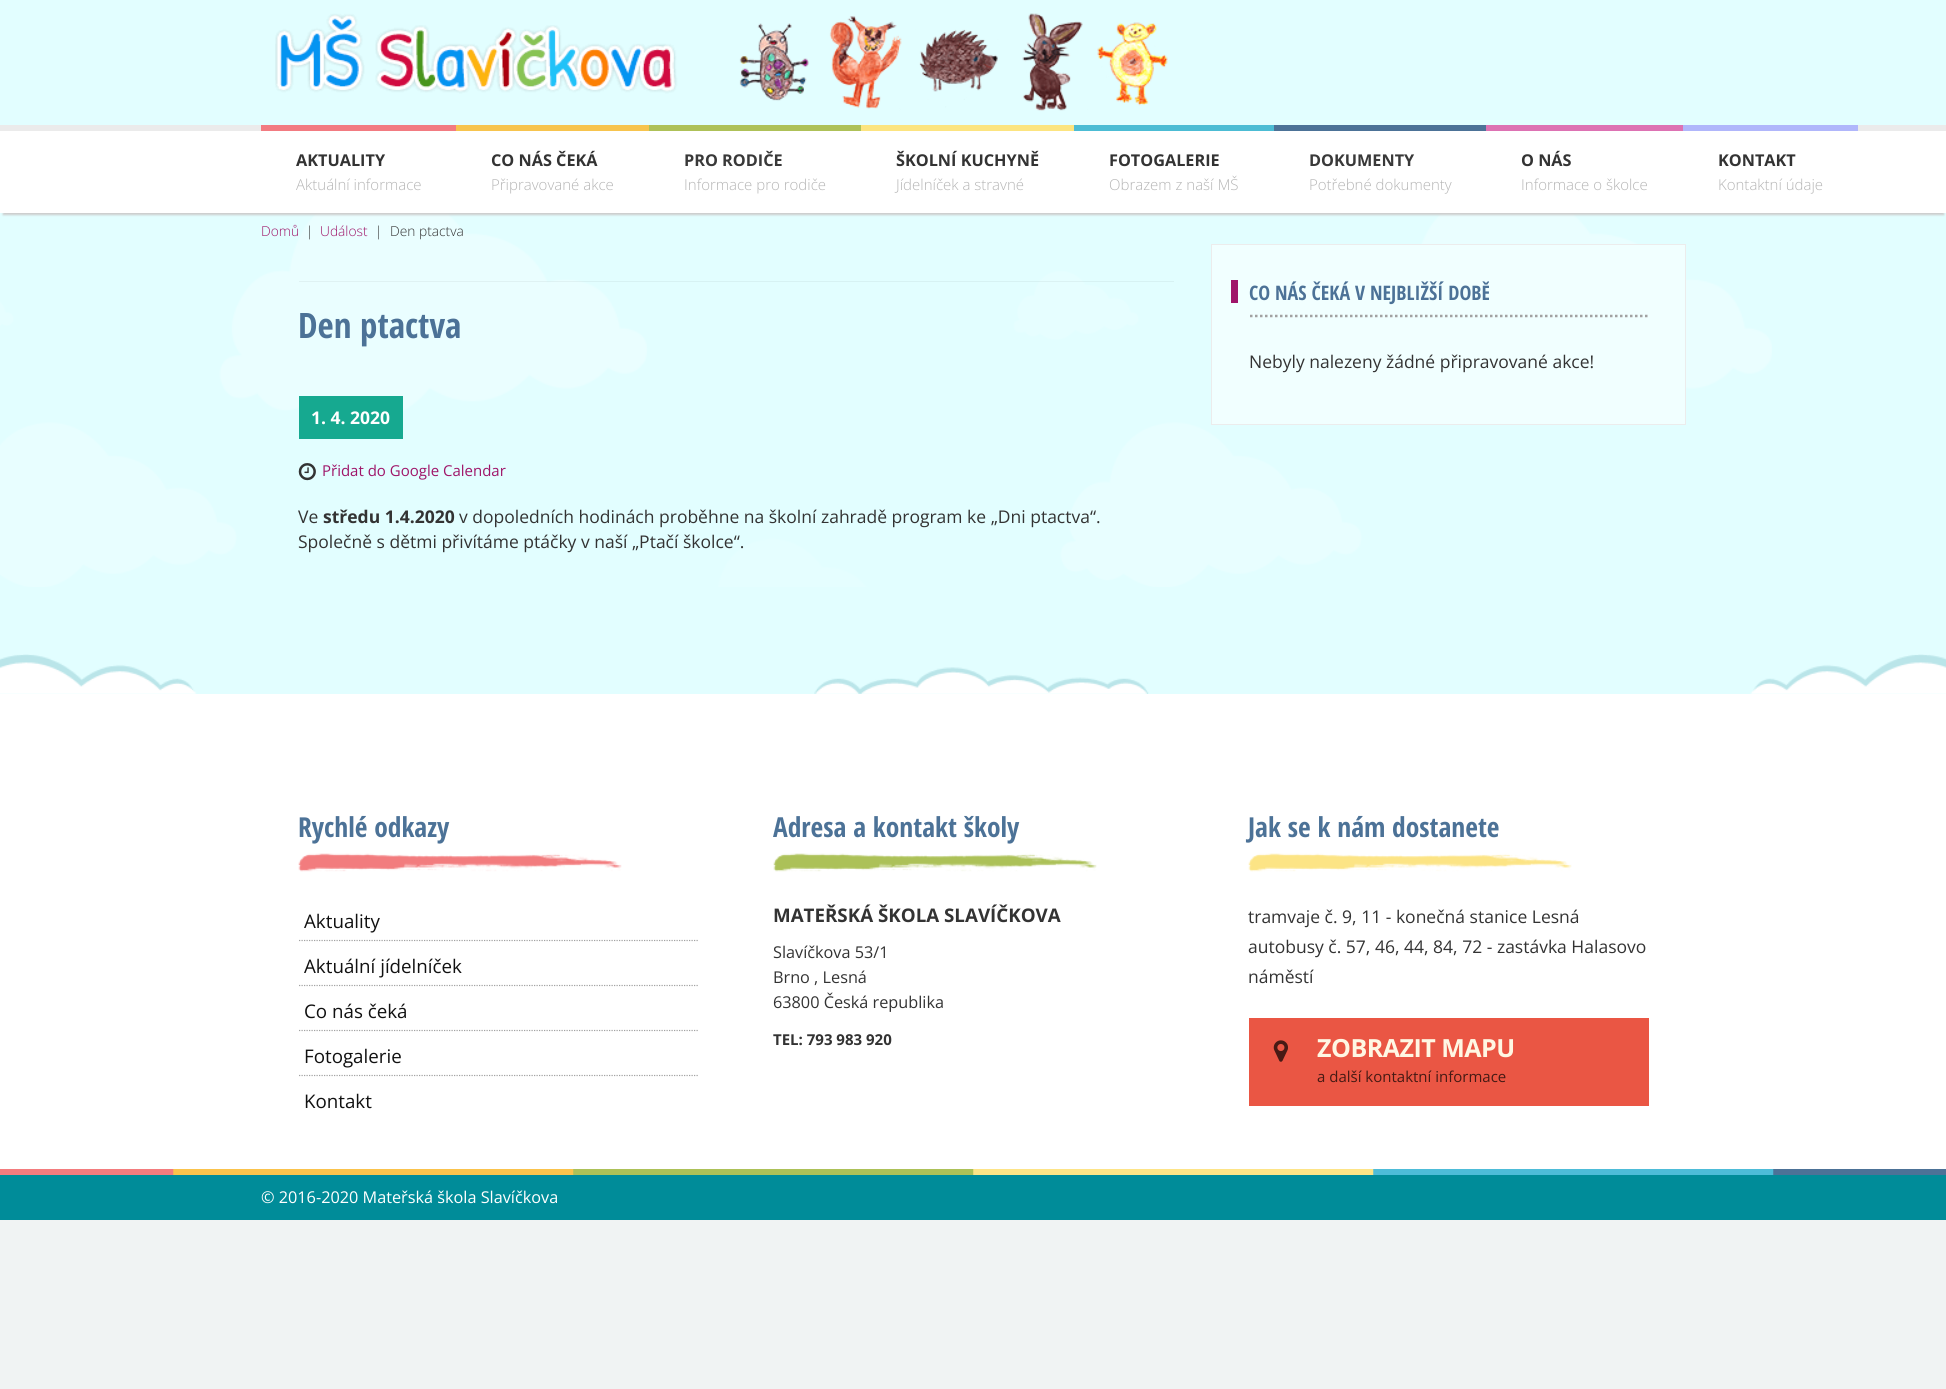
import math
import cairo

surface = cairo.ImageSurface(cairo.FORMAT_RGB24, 1946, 1389)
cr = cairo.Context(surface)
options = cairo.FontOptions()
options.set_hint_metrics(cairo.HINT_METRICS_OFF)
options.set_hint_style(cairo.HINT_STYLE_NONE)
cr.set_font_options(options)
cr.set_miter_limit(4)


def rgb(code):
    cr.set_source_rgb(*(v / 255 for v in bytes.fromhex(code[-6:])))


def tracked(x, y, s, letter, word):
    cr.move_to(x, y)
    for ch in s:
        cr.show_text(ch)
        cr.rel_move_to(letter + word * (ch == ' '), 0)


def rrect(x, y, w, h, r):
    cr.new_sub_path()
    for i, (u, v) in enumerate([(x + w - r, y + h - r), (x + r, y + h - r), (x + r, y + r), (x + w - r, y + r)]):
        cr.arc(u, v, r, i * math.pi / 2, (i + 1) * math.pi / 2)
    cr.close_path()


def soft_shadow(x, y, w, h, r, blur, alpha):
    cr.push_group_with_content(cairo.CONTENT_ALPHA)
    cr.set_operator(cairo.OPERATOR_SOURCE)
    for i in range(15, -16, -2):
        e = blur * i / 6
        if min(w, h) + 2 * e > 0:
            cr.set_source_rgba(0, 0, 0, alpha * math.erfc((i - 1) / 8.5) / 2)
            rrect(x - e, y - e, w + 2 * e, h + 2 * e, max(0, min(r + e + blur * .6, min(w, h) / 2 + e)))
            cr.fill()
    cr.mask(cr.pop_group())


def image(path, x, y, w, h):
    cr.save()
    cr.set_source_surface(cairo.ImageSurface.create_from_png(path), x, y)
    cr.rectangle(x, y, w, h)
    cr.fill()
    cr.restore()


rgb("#f0f3f3")
cr.paint()
rgb("#e2feff")
cr.rectangle(0, 0, 1946, 125)
cr.fill()
image("img/1.png", 275, 13, 893, 98)
cr.rectangle(0, 213, 1946, 481)
cr.fill()
image("img/2.png", 0, 213, 1772, 374)
rgb("#cccccc")
soft_shadow(3, 133, 1941, 82, 0, 1, 1)
rgb("#ffffff")
cr.rectangle(0, 131, 1946, 82)
cr.fill()
rgb("#ebebeb")
cr.rectangle(0, 125, 1946, 6)
cr.fill()
rgb("#f27b81")
cr.rectangle(261, 125, 195, 6)
cr.fill()
rgb("#f7c44e")
cr.rectangle(456, 125, 193, 6)
cr.fill()
rgb("#aec158")
cr.rectangle(649, 125, 212, 6)
cr.fill()
rgb("#fce480")
cr.rectangle(861, 125, 213, 6)
cr.fill()
rgb("#4cbcd4")
cr.rectangle(1074, 125, 200, 6)
cr.fill()
rgb("#4c7297")
cr.rectangle(1274, 125, 212, 6)
cr.fill()
rgb("#dd72b3")
cr.rectangle(1486, 125, 197, 6)
cr.fill()
rgb("#b0b6fb")
cr.rectangle(1683, 125, 175, 6)
cr.fill()
cr.set_source_rgba(0, 0, 0, 0.05)
cr.rectangle(299, 281, 875, 1)
cr.fill()
rgb("#16a990")
cr.rectangle(299, 396, 104, 43)
cr.fill()
image("img/3.png", 298, 463, 18, 18)
rgb("#f1ffff")
cr.rectangle(1211.5, 244.5, 474, 180)
cr.fill_preserve()
rgb("#ececec")
cr.set_line_width(1)
cr.stroke()
cr.new_path()
cr.move_to(1250, 316)
cr.line_to(1647.5, 316)
rgb("#a2a2a2")
cr.set_line_width(2.5)
cr.set_dash([2.5, 2.5])
cr.stroke()
rgb("#9f1569")
cr.rectangle(1231, 280, 7, 23)
cr.fill()
rgb("#ffffff")
cr.rectangle(0, 694, 1946, 475)
cr.fill()
image("img/4.png", 0, 654, 1946, 40)
image("img/5.png", 298, 853, 324, 19)
cr.new_path()
cr.move_to(299, 940.5)
cr.line_to(699, 940.5)
rgb("#a2a2a2")
cr.set_line_width(1.2)
cr.set_dash([1.25, 1.25])
cr.stroke()
cr.new_path()
cr.move_to(299, 985.5)
cr.line_to(699, 985.5)
cr.stroke()
cr.new_path()
cr.move_to(299, 1030.5)
cr.line_to(699, 1030.5)
cr.stroke()
cr.new_path()
cr.move_to(299, 1075.5)
cr.line_to(699, 1075.5)
cr.stroke()
image("img/6.png", 773, 853, 324, 19)
image("img/7.png", 1248, 853, 324, 19)
rgb("#ea5644")
cr.rectangle(1249, 1018, 400, 88)
cr.fill()
image("img/8.png", 1273, 1040, 15, 22)
rgb("#008c99")
cr.rectangle(0, 1175, 1946, 45)
cr.fill()
image("img/9.png", 0, 1169, 1946, 6)
cr.select_font_face("Open Sans", cairo.FONT_SLANT_NORMAL, cairo.FONT_WEIGHT_BOLD)
cr.set_font_size(16.25)
rgb("#333333")
cr.move_to(296, 166)
cr.show_text("AKTUALITY")
cr.select_font_face("Open Sans Light")
cr.set_font_size(15)
rgb("#b5b5b5")
cr.move_to(296, 190)
cr.show_text("Aktuální informace")
cr.select_font_face("Open Sans", cairo.FONT_SLANT_NORMAL, cairo.FONT_WEIGHT_BOLD)
cr.set_font_size(16.25)
rgb("#333333")
cr.move_to(491, 166)
cr.show_text("CO NÁS ČEKÁ")
cr.select_font_face("Open Sans Light")
cr.set_font_size(15)
rgb("#b5b5b5")
cr.move_to(491, 190)
cr.show_text("Připravované akce")
cr.select_font_face("Open Sans", cairo.FONT_SLANT_NORMAL, cairo.FONT_WEIGHT_BOLD)
cr.set_font_size(16.25)
rgb("#393939")
cr.move_to(684, 166)
cr.show_text("PRO RODIČE")
cr.select_font_face("Open Sans Light")
cr.set_font_size(15)
rgb("#b5b5b5")
cr.move_to(684, 190)
cr.show_text("Informace pro rodiče")
cr.select_font_face("Open Sans", cairo.FONT_SLANT_NORMAL, cairo.FONT_WEIGHT_BOLD)
cr.set_font_size(16.25)
rgb("#333333")
cr.move_to(896, 166)
cr.show_text("ŠKOLNÍ KUCHYNĚ")
cr.select_font_face("Open Sans Light")
cr.set_font_size(15)
rgb("#b5b5b5")
cr.move_to(896, 190)
cr.show_text("Jídelníček a stravné")
cr.select_font_face("Open Sans", cairo.FONT_SLANT_NORMAL, cairo.FONT_WEIGHT_BOLD)
cr.set_font_size(16.25)
rgb("#333333")
cr.move_to(1109, 166)
cr.show_text("FOTOGALERIE")
cr.select_font_face("Open Sans Light")
cr.set_font_size(15)
rgb("#b5b5b5")
cr.move_to(1109, 190)
cr.show_text("Obrazem z naší MŠ")
cr.select_font_face("Open Sans", cairo.FONT_SLANT_NORMAL, cairo.FONT_WEIGHT_BOLD)
cr.set_font_size(16.25)
rgb("#393939")
cr.move_to(1309, 166)
cr.show_text("DOKUMENTY")
cr.select_font_face("Open Sans Light")
cr.set_font_size(15)
rgb("#b5b5b5")
cr.move_to(1309, 190)
cr.show_text("Potřebné dokumenty")
cr.select_font_face("Open Sans", cairo.FONT_SLANT_NORMAL, cairo.FONT_WEIGHT_BOLD)
cr.set_font_size(16.25)
rgb("#333333")
cr.move_to(1521, 166)
cr.show_text("O NÁS")
cr.select_font_face("Open Sans Light")
cr.set_font_size(15)
rgb("#b5b5b5")
cr.move_to(1521, 190)
cr.show_text("Informace o školce")
cr.select_font_face("Open Sans", cairo.FONT_SLANT_NORMAL, cairo.FONT_WEIGHT_BOLD)
cr.set_font_size(16.25)
rgb("#333333")
cr.move_to(1718, 166)
cr.show_text("KONTAKT")
cr.select_font_face("Open Sans Light")
cr.set_font_size(15)
rgb("#b5b5b5")
cr.move_to(1718, 190)
cr.show_text("Kontaktní údaje")
cr.set_font_size(13.75)
rgb("#9f1569")
cr.move_to(261, 236)
cr.show_text("Domů")
rgb("#333333")
cr.move_to(306, 236)
cr.show_text("|")
rgb("#9f1569")
cr.move_to(320, 236)
cr.show_text("Událost")
rgb("#333333")
cr.move_to(375, 236)
cr.show_text("|")
cr.move_to(390, 236)
cr.show_text("Den ptactva")
cr.select_font_face("Open Sans Condensed", cairo.FONT_SLANT_NORMAL, cairo.FONT_WEIGHT_BOLD)
cr.set_font_size(35)
rgb("#4c7297")
cr.move_to(298, 338)
cr.show_text("Den ptactva")
cr.select_font_face("Open Sans", cairo.FONT_SLANT_NORMAL, cairo.FONT_WEIGHT_BOLD)
cr.set_font_size(17.5)
rgb("#ffffff")
cr.move_to(311, 424)
cr.show_text("1. 4. 2020")
cr.select_font_face("Open Sans")
cr.set_font_size(15)
rgb("#9f1569")
cr.move_to(322, 476)
cr.show_text("Přidat do Google Calendar")
cr.set_font_size(17.5)
rgb("#333333")
cr.move_to(298, 523)
cr.show_text("Ve")
cr.select_font_face("Open Sans", cairo.FONT_SLANT_NORMAL, cairo.FONT_WEIGHT_BOLD)
cr.move_to(323, 523)
cr.show_text("středu 1.4.2020")
cr.select_font_face("Open Sans")
cr.move_to(459, 523)
cr.show_text("v dopoledních hodinách proběhne na školní zahradě program ke „Dni ptactva“.")
cr.move_to(298, 548)
cr.show_text("Společně s dětmi přivítáme ptáčky v naší „Ptačí školce“.")
cr.select_font_face("Open Sans Condensed", cairo.FONT_SLANT_NORMAL, cairo.FONT_WEIGHT_BOLD)
cr.set_font_size(20)
rgb("#4c7297")
cr.move_to(1249, 300)
cr.show_text("CO NÁS ČEKÁ V NEJBLIŽŠÍ DOBĚ")
cr.select_font_face("Open Sans")
cr.set_font_size(17.5)
rgb("#333333")
cr.move_to(1249, 368)
cr.show_text("Nebyly nalezeny žádné připravované akce!")
cr.select_font_face("Open Sans Condensed", cairo.FONT_SLANT_NORMAL, cairo.FONT_WEIGHT_BOLD)
cr.set_font_size(27.5)
rgb("#4c7297")
cr.move_to(298, 837)
cr.show_text("Rychlé odkazy")
cr.select_font_face("Open Sans")
cr.set_font_size(18.75)
rgb("#111111")
for x, y, s in [
    (304, 928, "Aktuality"),
    (304, 973, "Aktuální jídelníček"),
    (304, 1018, "Co nás čeká"),
    (304, 1063, "Fotogalerie"),
    (304, 1108, "Kontakt"),
]:
    cr.move_to(x, y)
    cr.show_text(s)
cr.select_font_face("Open Sans Condensed", cairo.FONT_SLANT_NORMAL, cairo.FONT_WEIGHT_BOLD)
cr.set_font_size(27.5)
rgb("#4c7297")
cr.move_to(773, 837)
cr.show_text("Adresa a kontakt školy")
cr.select_font_face("Open Sans", cairo.FONT_SLANT_NORMAL, cairo.FONT_WEIGHT_BOLD)
cr.set_font_size(18.75)
rgb("#333333")
cr.move_to(773, 922)
cr.show_text("MATEŘSKÁ ŠKOLA SLAVÍČKOVA")
cr.select_font_face("Open Sans")
cr.set_font_size(16.25)
for x, y, s in [
    (773, 958, "Slavíčkova 53/1"),
    (773, 983, "Brno , Lesná"),
    (773, 1008, "63800 Česká republika"),
]:
    cr.move_to(x, y)
    cr.show_text(s)
cr.select_font_face("Open Sans", cairo.FONT_SLANT_NORMAL, cairo.FONT_WEIGHT_BOLD)
cr.set_font_size(15)
cr.move_to(773, 1045)
cr.show_text("TEL: 793 983 920")
cr.select_font_face("Open Sans Condensed", cairo.FONT_SLANT_NORMAL, cairo.FONT_WEIGHT_BOLD)
cr.set_font_size(27.5)
rgb("#4c7297")
cr.move_to(1248, 837)
cr.show_text("Jak se k nám dostanete")
cr.select_font_face("Open Sans")
cr.set_font_size(17.5)
rgb("#333333")
for x, y, s in [
    (1248, 923, "tramvaje č. 9, 11 - konečná stanice Lesná"),
    (1248, 953, "autobusy č. 57, 46, 44, 84, 72 - zastávka Halasovo"),
    (1248, 983, "náměstí"),
]:
    cr.move_to(x, y)
    cr.show_text(s)
cr.select_font_face("Open Sans", cairo.FONT_SLANT_NORMAL, cairo.FONT_WEIGHT_BOLD)
cr.set_font_size(25)
rgb("#fff7e3")
tracked(1317, 1057, "ZOBRAZIT MAPU", -0.5, 0)
cr.select_font_face("Open Sans")
cr.set_font_size(15)
rgb("#461a14")
cr.move_to(1317, 1082)
cr.show_text("a další kontaktní informace")
cr.set_font_size(16.25)
rgb("#ffffff")
cr.move_to(261, 1203)
cr.show_text("© 2016-2020 Mateřská škola Slavíčkova")
surface.write_to_png("page.png")
